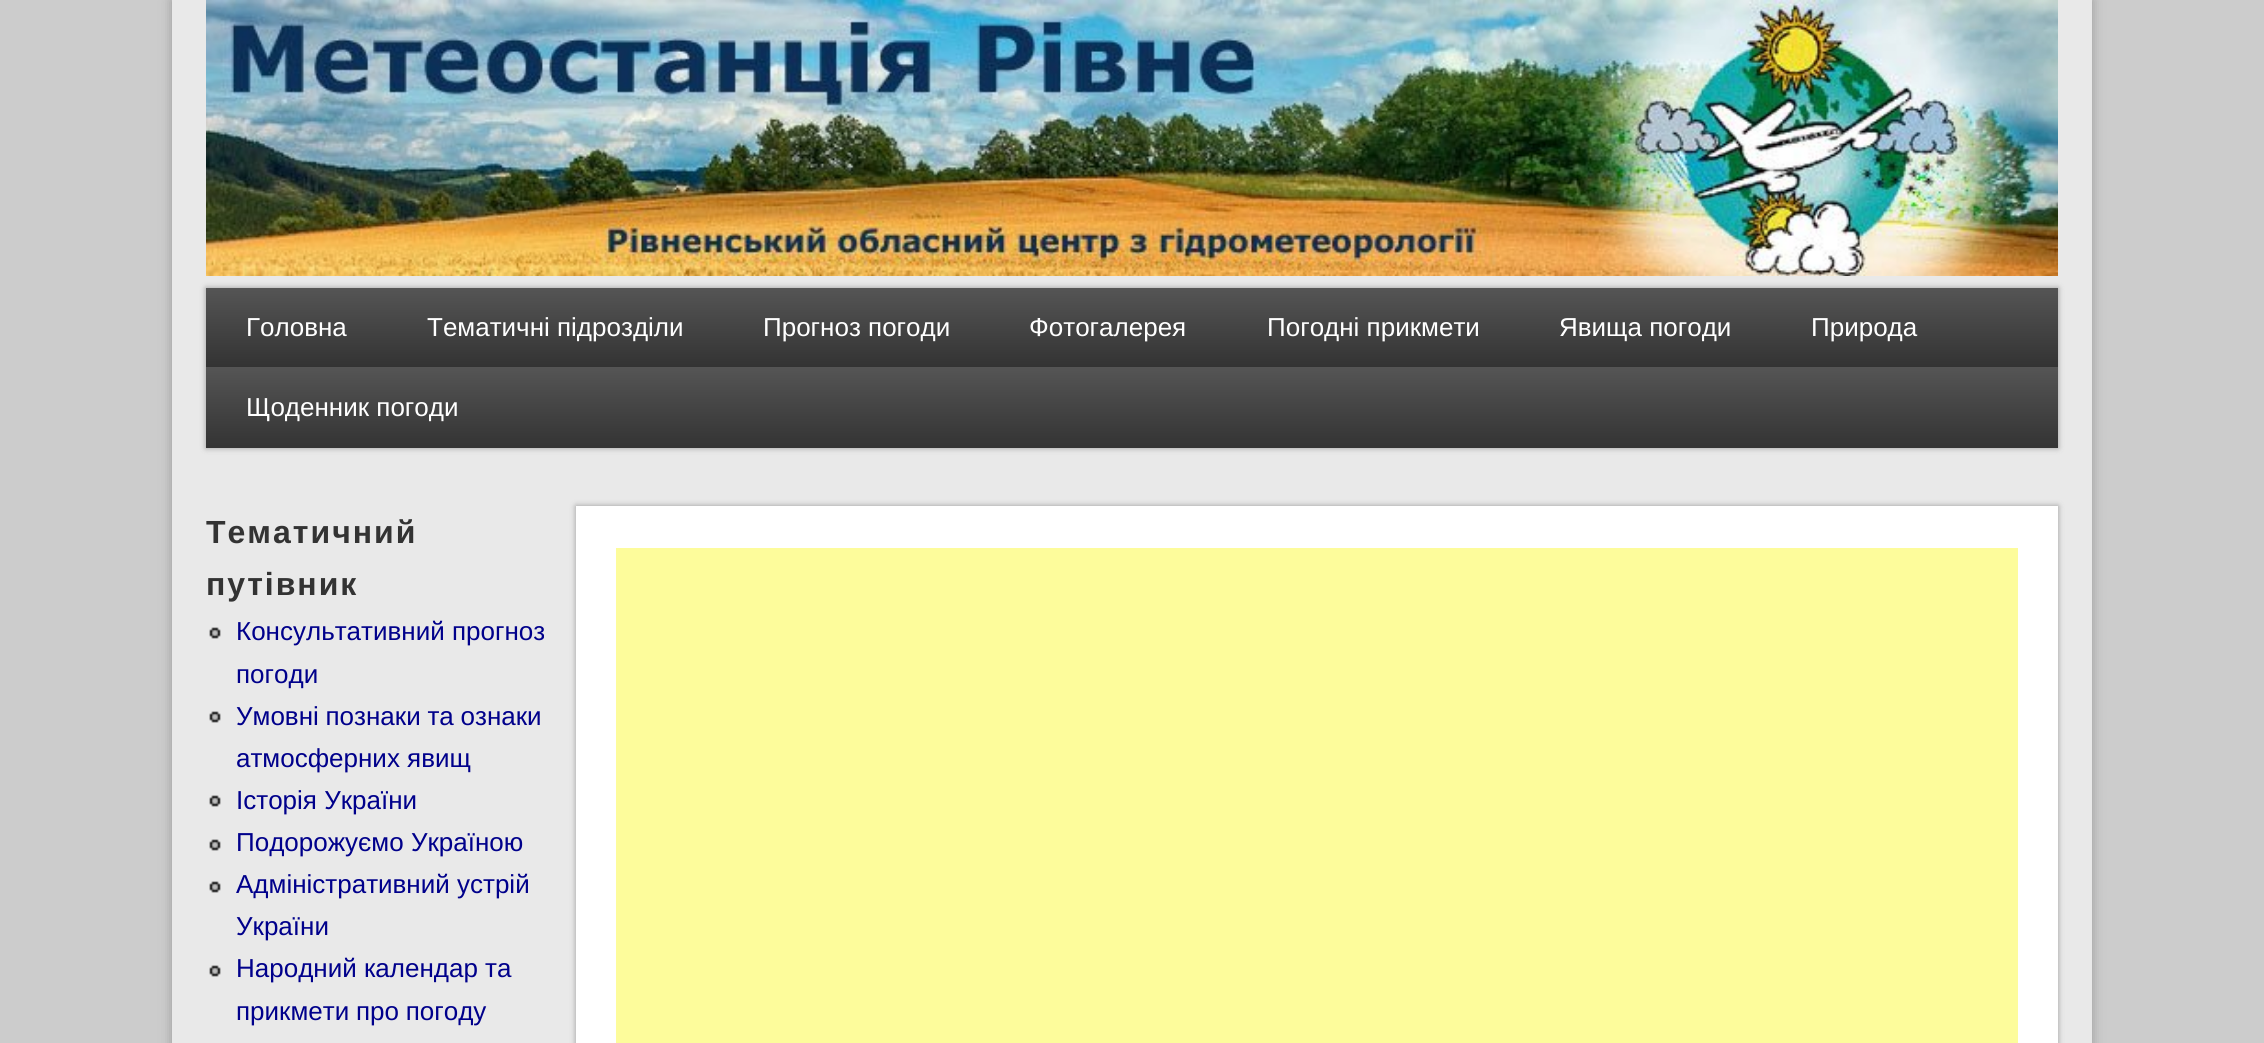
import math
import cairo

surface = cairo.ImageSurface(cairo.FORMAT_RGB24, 2264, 1043)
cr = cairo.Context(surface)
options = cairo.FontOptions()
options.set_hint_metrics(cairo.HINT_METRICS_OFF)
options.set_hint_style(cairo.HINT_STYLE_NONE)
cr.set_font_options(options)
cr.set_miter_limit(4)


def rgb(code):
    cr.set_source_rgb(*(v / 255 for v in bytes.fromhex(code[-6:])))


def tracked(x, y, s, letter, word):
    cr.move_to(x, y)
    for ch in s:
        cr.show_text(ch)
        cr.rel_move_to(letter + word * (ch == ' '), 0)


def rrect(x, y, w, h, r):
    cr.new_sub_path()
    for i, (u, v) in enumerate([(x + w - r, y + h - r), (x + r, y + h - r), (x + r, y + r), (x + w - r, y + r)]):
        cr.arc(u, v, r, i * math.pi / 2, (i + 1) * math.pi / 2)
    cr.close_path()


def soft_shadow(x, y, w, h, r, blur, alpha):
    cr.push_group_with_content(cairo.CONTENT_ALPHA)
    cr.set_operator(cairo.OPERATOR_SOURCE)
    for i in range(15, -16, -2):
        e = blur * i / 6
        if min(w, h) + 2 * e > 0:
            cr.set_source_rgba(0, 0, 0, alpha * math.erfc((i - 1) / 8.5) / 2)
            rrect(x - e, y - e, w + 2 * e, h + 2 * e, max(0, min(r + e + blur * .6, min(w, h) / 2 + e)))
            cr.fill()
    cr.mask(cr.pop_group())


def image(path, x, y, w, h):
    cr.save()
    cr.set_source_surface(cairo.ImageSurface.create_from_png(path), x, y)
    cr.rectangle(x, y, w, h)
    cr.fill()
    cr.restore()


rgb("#cccccc")
cr.paint()
rgb("#999999")
soft_shadow(172, 0, 1920, 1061, 0, 6, 1)
rgb("#e9e9e9")
cr.rectangle(172, 0, 1920, 1043)
cr.fill()
image("img/1.png", 206, 0, 1852, 276)
rgb("#999999")
soft_shadow(206, 288, 1852, 160, 0, 3, 1)
gradient = cairo.LinearGradient(1132, 288, 1132, 528)
gradient.add_color_stop_rgba(0, 0.333, 0.333, 0.333, 1)
gradient.add_color_stop_rgba(0.33, 0.2, 0.2, 0.2, 1)
gradient.add_color_stop_rgba(0.33, 0.333, 0.333, 0.333, 1)
gradient.add_color_stop_rgba(0.67, 0.2, 0.2, 0.2, 1)
gradient.add_color_stop_rgba(0.67, 0.333, 0.333, 0.333, 1)
gradient.add_color_stop_rgba(1, 0.2, 0.2, 0.2, 1)
cr.set_source(gradient)
cr.rectangle(206, 288, 1852, 160)
cr.fill()
image("img/2.png", 209, 627, 12, 12)
image("img/2.png", 209, 711, 12, 12)
image("img/2.png", 209, 795, 12, 12)
image("img/2.png", 209, 839, 12, 12)
image("img/2.png", 209, 881, 12, 12)
image("img/2.png", 209, 965, 12, 12)
rgb("#999999")
soft_shadow(576, 506, 1482, 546, 0, 3, 1)
rgb("#ffffff")
cr.rectangle(576, 506, 1482, 537)
cr.fill()
rgb("#fdfc9b")
cr.rectangle(616, 548, 1402, 495)
cr.fill()
cr.select_font_face("Liberation Sans")
cr.set_font_size(26)
rgb("#ffffff")
for x, y, s in [
    (246, 336, "Головна"),
    (427, 336, "Тематичні підрозділи"),
    (763, 336, "Прогноз погоди"),
    (1029, 336, "Фотогалерея"),
    (1267, 336, "Погодні прикмети"),
    (1559, 336, "Явища погоди"),
    (1811, 336, "Природа"),
    (246, 416, "Щоденник погоди"),
]:
    cr.move_to(x, y)
    cr.show_text(s)
cr.select_font_face("Liberation Sans", cairo.FONT_SLANT_NORMAL, cairo.FONT_WEIGHT_BOLD)
cr.set_font_size(32)
rgb("#333333")
tracked(206, 543, "Тематичний", 2, 0)
tracked(206, 595, "путівник", 2, 0)
cr.select_font_face("Liberation Sans")
cr.set_font_size(26)
rgb("#00008b")
cr.move_to(236, 640)
cr.show_text("Консультативний прогноз")
cr.move_to(236, 683)
cr.show_text("погоди")
tracked(236, 725, "Умовні познаки та ознаки", 0, -0.5)
for x, y, s in [
    (236, 767, "атмосферних явищ"),
    (236, 809, "Історія України"),
    (236, 851, "Подорожуємо Україною"),
    (236, 893, "Адміністративний устрій"),
    (236, 935, "України"),
    (236, 977, "Народний календар та"),
]:
    cr.move_to(x, y)
    cr.show_text(s)
tracked(236, 1020, "прикмети про погоду", 0, -0.5)
surface.write_to_png("page.png")
